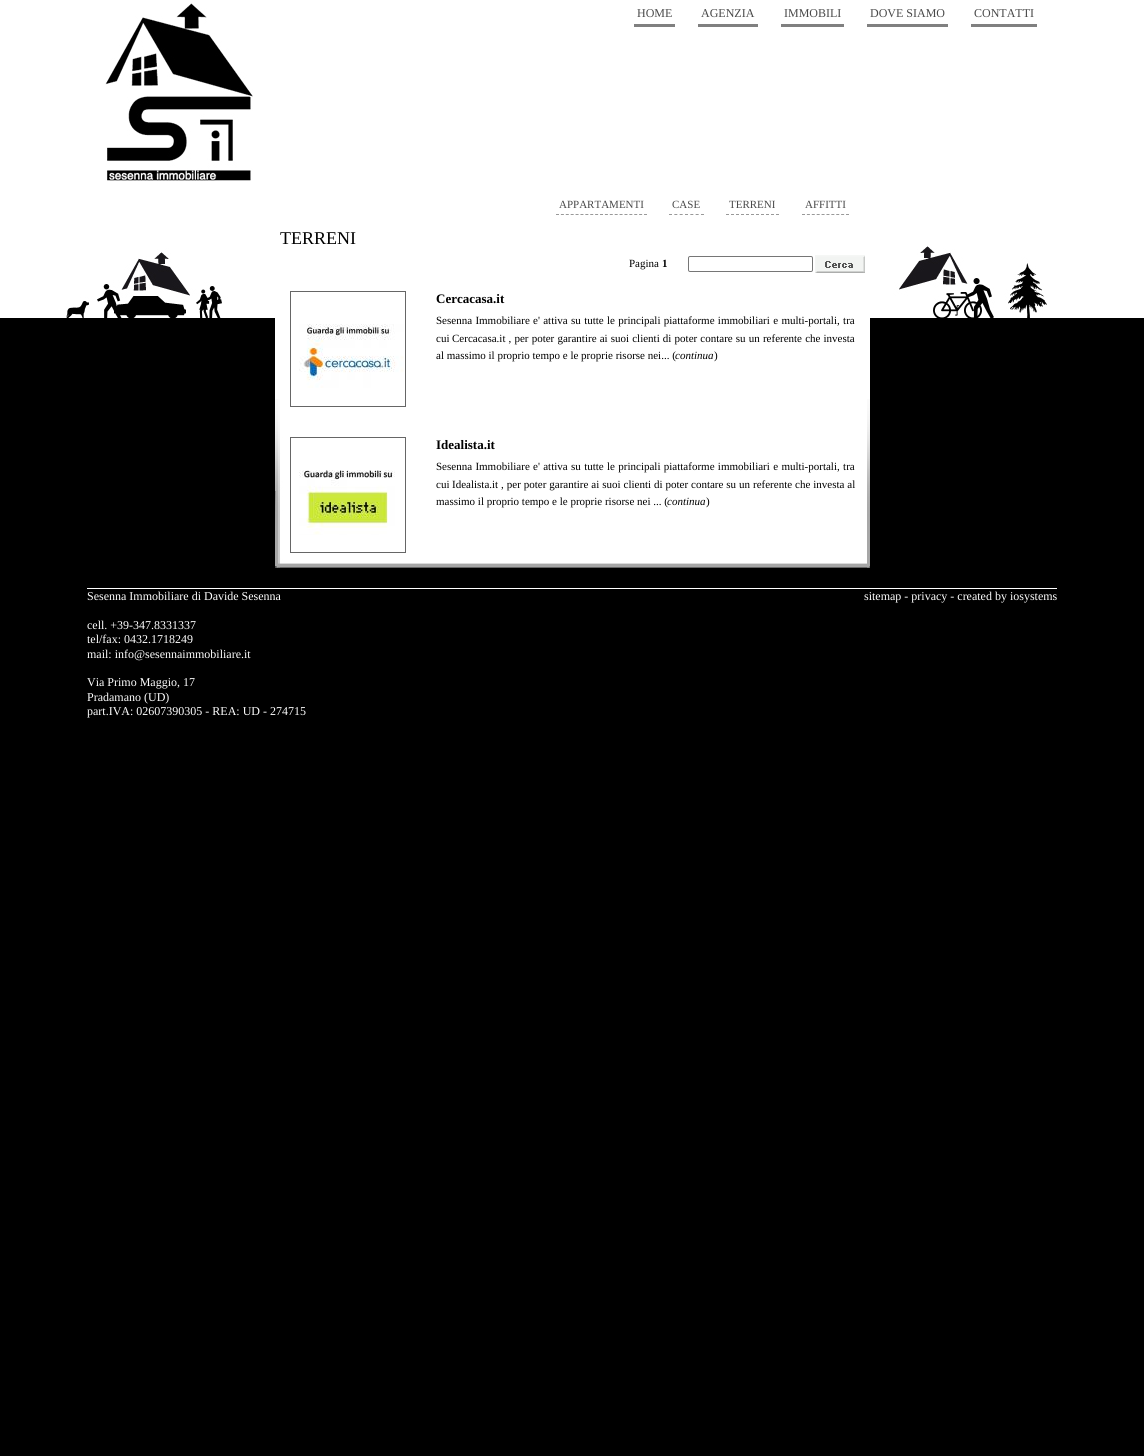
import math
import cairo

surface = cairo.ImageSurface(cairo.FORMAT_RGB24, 1144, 1456)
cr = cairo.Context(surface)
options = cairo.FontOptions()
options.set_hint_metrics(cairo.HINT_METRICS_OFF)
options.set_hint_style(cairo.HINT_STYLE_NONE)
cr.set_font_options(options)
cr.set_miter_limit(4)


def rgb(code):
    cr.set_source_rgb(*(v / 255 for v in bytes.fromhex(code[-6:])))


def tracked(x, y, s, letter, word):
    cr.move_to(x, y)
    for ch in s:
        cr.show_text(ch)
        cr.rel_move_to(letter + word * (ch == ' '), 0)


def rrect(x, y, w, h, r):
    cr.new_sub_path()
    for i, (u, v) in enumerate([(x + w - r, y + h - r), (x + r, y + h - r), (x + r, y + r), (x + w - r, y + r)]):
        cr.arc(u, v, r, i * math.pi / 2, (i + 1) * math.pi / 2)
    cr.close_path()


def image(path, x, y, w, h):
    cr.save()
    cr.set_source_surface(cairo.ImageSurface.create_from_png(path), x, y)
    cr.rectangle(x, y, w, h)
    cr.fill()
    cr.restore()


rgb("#000000")
cr.paint()
rgb("#ffffff")
cr.rectangle(0, 0, 1144, 318)
cr.fill()
image("img/1.png", 66, 246, 981, 72)
image("img/2.png", 105, 3, 148, 178)
for x, y, w, h, color in [
    (634, 24, 41, 3, "#808080"),
    (698, 24, 60, 3, "#808080"),
    (781, 24, 63, 3, "#808080"),
    (867, 24, 81, 3, "#808080"),
    (971, 24, 66, 3, "#808080"),
    (275, 318, 595, 81, "#ffffff"),
]:
    rgb(color)
    cr.rectangle(x, y, w, h)
    cr.fill()
image("img/3.png", 275, 399, 595, 169)
cr.new_path()
cr.move_to(556, 214.5)
cr.line_to(647, 214.5)
rgb("#999999")
cr.set_line_width(1)
cr.set_dash([3, 1.89])
cr.stroke()
cr.new_path()
cr.move_to(669, 214.5)
cr.line_to(704, 214.5)
cr.set_dash([3, 2.33])
cr.stroke()
cr.new_path()
cr.move_to(726, 214.5)
cr.line_to(779, 214.5)
cr.set_dash([3, 2])
cr.stroke()
cr.new_path()
cr.move_to(802, 214.5)
cr.line_to(849, 214.5)
cr.set_dash([3, 1.89])
cr.stroke()
rrect(688.5, 256.5, 124, 15, 1.5)
rgb("#767676")
cr.set_dash([])
cr.stroke()
image("img/4.png", 815, 255, 50, 18)
cr.rectangle(290.5, 291.5, 115, 115)
rgb("#666666")
cr.stroke()
image("img/5.png", 299, 324, 105, 64)
cr.rectangle(290.5, 437.5, 115, 115)
cr.stroke()
image("img/6.png", 299, 470, 96, 65)
rgb("#ffffff")
cr.rectangle(87, 588, 970, 1)
cr.fill()
cr.select_font_face("Liberation Serif")
cr.set_font_size(12)
rgb("#494949")
for x, y, s in [
    (637, 17, "HOME"),
    (701, 17, "AGENZIA"),
    (784, 17, "IMMOBILI"),
    (870, 17, "DOVE SIAMO"),
    (974, 17, "CONTATTI"),
]:
    cr.move_to(x, y)
    cr.show_text(s)
cr.set_font_size(11)
for x, y, s in [
    (559, 208, "APPARTAMENTI"),
    (672, 208, "CASE"),
    (729, 208, "TERRENI"),
    (805, 208, "AFFITTI"),
]:
    cr.move_to(x, y)
    cr.show_text(s)
cr.set_font_size(18)
rgb("#000000")
cr.move_to(280, 244)
cr.show_text("TERRENI")
cr.set_font_size(11)
cr.move_to(629, 267)
cr.show_text("Pagina")
cr.select_font_face("Liberation Serif", cairo.FONT_SLANT_NORMAL, cairo.FONT_WEIGHT_BOLD)
cr.move_to(662, 267)
cr.show_text("1")
cr.set_font_size(13)
cr.move_to(436, 303)
cr.show_text("Cercacasa.it")
cr.select_font_face("Liberation Serif")
cr.set_font_size(11)
tracked(436, 324, "Sesenna Immobiliare", 0, 0.6)
tracked(533, 324, "e' attiva su tutte le principali piattaforme immobiliari e multi-portali, tra", 0, 0.6)
cr.move_to(436, 342)
cr.show_text("cui")
tracked(452, 342, "Cercacasa.it , per poter garantire ai suoi clienti di poter contare su un referente che investa", 0, 0.4)
cr.move_to(436, 359)
cr.show_text("al massimo il proprio tempo e le proprie risorse nei... (")
cr.select_font_face("Liberation Serif", cairo.FONT_SLANT_ITALIC)
cr.move_to(675, 359)
cr.show_text("continua")
cr.select_font_face("Liberation Serif")
cr.move_to(714, 359)
cr.show_text(")")
cr.select_font_face("Liberation Serif", cairo.FONT_SLANT_NORMAL, cairo.FONT_WEIGHT_BOLD)
cr.set_font_size(13)
cr.move_to(436, 449)
cr.show_text("Idealista.it")
cr.select_font_face("Liberation Serif")
cr.set_font_size(11)
tracked(436, 470, "Sesenna Immobiliare", 0, 0.6)
tracked(533, 470, "e' attiva su tutte le principali piattaforme immobiliari e multi-portali, tra", 0, 0.6)
cr.move_to(436, 488)
cr.show_text("cui")
tracked(452, 488, "Idealista.it , per poter garantire ai suoi clienti di poter contare su un referente che investa al", 0, 0.2)
cr.move_to(436, 505)
cr.show_text("massimo il proprio tempo e le proprie risorse nei ... (")
cr.select_font_face("Liberation Serif", cairo.FONT_SLANT_ITALIC)
cr.move_to(667, 505)
cr.show_text("continua")
cr.select_font_face("Liberation Serif")
cr.move_to(706, 505)
cr.show_text(")")
cr.set_font_size(12)
rgb("#ffffff")
for x, y, s in [
    (87, 600, "Sesenna Immobiliare di Davide Sesenna"),
    (87, 629, "cell. +39-347.8331337"),
    (87, 643, "tel/fax: 0432.1718249"),
    (87, 658, "mail: info@sesennaimmobiliare.it"),
    (87, 686, "Via Primo Maggio, 17"),
    (87, 701, "Pradamano (UD)"),
    (87, 715, "part.IVA: 02607390305 - REA: UD - 274715"),
    (864, 600, "sitemap - privacy - created by iosystems"),
]:
    cr.move_to(x, y)
    cr.show_text(s)
surface.write_to_png("page.png")
